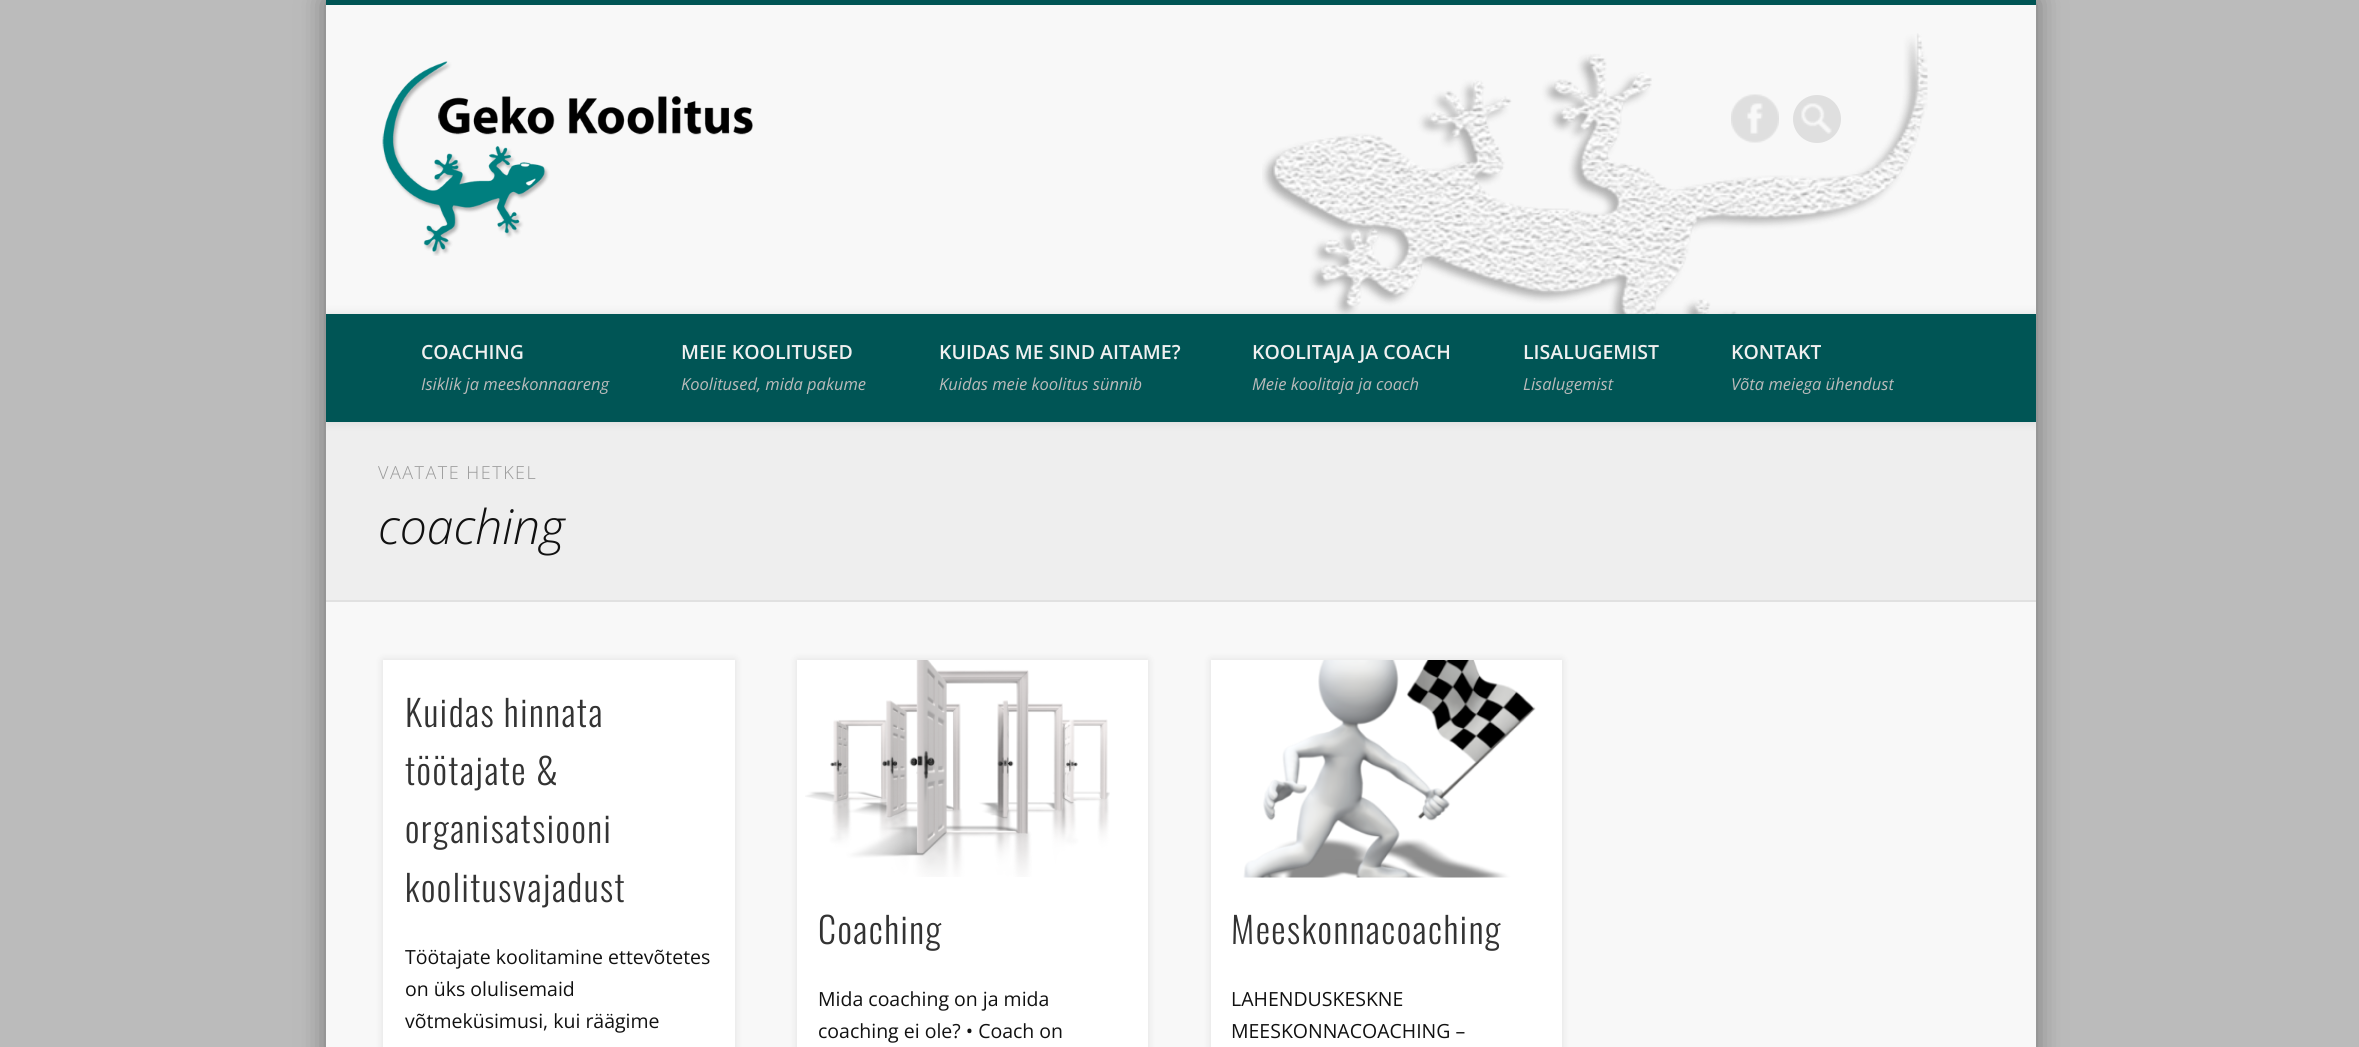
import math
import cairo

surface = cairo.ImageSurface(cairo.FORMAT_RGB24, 2359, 1047)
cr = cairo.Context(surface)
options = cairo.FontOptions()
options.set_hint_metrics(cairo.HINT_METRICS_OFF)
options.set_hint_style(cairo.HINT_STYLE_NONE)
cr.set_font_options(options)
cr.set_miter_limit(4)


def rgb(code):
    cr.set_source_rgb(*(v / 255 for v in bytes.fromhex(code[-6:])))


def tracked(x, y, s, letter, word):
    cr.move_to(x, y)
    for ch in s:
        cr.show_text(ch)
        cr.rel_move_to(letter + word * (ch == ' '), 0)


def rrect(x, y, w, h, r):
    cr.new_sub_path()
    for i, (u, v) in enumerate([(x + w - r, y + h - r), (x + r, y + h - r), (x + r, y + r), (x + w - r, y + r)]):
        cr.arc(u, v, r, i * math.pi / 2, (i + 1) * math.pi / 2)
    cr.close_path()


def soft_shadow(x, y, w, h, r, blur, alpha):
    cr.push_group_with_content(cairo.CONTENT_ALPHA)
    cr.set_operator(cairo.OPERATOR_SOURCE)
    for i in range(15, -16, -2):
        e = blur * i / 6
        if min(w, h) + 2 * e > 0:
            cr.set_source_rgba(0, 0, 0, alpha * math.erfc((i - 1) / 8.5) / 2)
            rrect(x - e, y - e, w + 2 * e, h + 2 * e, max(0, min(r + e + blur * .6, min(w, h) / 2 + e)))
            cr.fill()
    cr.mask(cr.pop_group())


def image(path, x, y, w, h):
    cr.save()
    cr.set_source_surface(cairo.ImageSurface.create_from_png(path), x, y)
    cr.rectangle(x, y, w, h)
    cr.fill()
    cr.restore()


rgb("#bbbbbb")
cr.paint()
rgb("#000000")
soft_shadow(326, 0, 1710, 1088, 0, 13.5, 0.4)
rgb("#f8f8f8")
cr.rectangle(326, 5, 1710, 1042)
cr.fill()
image("img/1.png", 1262, 33, 666, 281)
rgb("#005555")
cr.rectangle(326, 0, 1710, 5)
cr.fill()
image("img/2.png", 382, 61, 371, 195)
image("img/3.png", 1731, 94, 48, 49)
rgb("#dfdfdf")
cr.arc(1817, 119, 24, 0, 2 * math.pi)
cr.fill()
image("img/4.png", 1801, 103, 31, 31)
rgb("#eeeeee")
cr.rectangle(326, 422, 1710, 178)
cr.fill()
cr.save()
cr.rectangle(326, 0, 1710, 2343)
cr.clip()
rgb("#000000")
soft_shadow(326, 314, 1710, 108, 0, 5, 0.1)
cr.restore()
rgb("#005555")
cr.rectangle(326, 314, 1710, 108)
cr.fill()
rgb("#e1e1e1")
cr.rectangle(326, 600, 1710, 2)
cr.fill()
rgb("#000000")
soft_shadow(383, 660, 352, 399, 0, 4, 0.1)
rgb("#ffffff")
cr.rectangle(383, 660, 352, 387)
cr.fill()
rgb("#000000")
soft_shadow(797, 660, 351, 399, 0, 4, 0.1)
rgb("#ffffff")
cr.rectangle(797, 660, 351, 387)
cr.fill()
image("img/5.png", 805, 660, 305, 217)
rgb("#000000")
soft_shadow(1211, 660, 351, 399, 0, 4, 0.1)
rgb("#ffffff")
cr.rectangle(1211, 660, 351, 387)
cr.fill()
image("img/6.png", 1243, 660, 293, 218)
cr.select_font_face("Open Sans SemiBold")
cr.set_font_size(19.5)
rgb("#f0f0f0")
cr.move_to(421, 359)
cr.show_text("COACHING")
cr.select_font_face("Open Sans", cairo.FONT_SLANT_ITALIC)
cr.set_font_size(16.5)
rgb("#bbbbbb")
cr.move_to(421, 390)
cr.show_text("Isiklik ja meeskonnaareng")
cr.select_font_face("Open Sans SemiBold")
cr.set_font_size(19.5)
rgb("#f0f0f0")
cr.move_to(681, 359)
cr.show_text("MEIE KOOLITUSED")
cr.select_font_face("Open Sans", cairo.FONT_SLANT_ITALIC)
cr.set_font_size(16.5)
rgb("#bbbbbb")
cr.move_to(681, 390)
cr.show_text("Koolitused, mida pakume")
cr.select_font_face("Open Sans SemiBold")
cr.set_font_size(19.5)
rgb("#f0f0f0")
cr.move_to(939, 359)
cr.show_text("KUIDAS ME SIND AITAME?")
cr.select_font_face("Open Sans", cairo.FONT_SLANT_ITALIC)
cr.set_font_size(16.5)
rgb("#bbbbbb")
cr.move_to(939, 390)
cr.show_text("Kuidas meie koolitus sünnib")
cr.select_font_face("Open Sans SemiBold")
cr.set_font_size(19.5)
rgb("#f0f0f0")
cr.move_to(1252, 359)
cr.show_text("KOOLITAJA JA COACH")
cr.select_font_face("Open Sans", cairo.FONT_SLANT_ITALIC)
cr.set_font_size(16.5)
rgb("#bbbbbb")
cr.move_to(1252, 390)
cr.show_text("Meie koolitaja ja coach")
cr.select_font_face("Open Sans SemiBold")
cr.set_font_size(19.5)
rgb("#f0f0f0")
cr.move_to(1523, 359)
cr.show_text("LISALUGEMIST")
cr.select_font_face("Open Sans", cairo.FONT_SLANT_ITALIC)
cr.set_font_size(16.5)
rgb("#bbbbbb")
cr.move_to(1523, 390)
cr.show_text("Lisalugemist")
cr.select_font_face("Open Sans SemiBold")
cr.set_font_size(19.5)
rgb("#f0f0f0")
cr.move_to(1731, 359)
cr.show_text("KONTAKT")
cr.select_font_face("Open Sans", cairo.FONT_SLANT_ITALIC)
cr.set_font_size(16.5)
rgb("#bbbbbb")
cr.move_to(1731, 390)
cr.show_text("Võta meiega ühendust")
cr.select_font_face("Open Sans Light")
cr.set_font_size(18)
rgb("#999999")
tracked(378, 479, "VAATATE HETKEL", 1.5, 0)
cr.select_font_face("Open Sans Light", cairo.FONT_SLANT_ITALIC)
cr.set_font_size(48)
rgb("#111111")
cr.move_to(378, 544)
cr.show_text("coaching")
cr.select_font_face("Oswald Light")
cr.set_font_size(36)
rgb("#333333")
for x, y, s in [
    (405, 727, "Kuidas hinnata"),
    (405, 785, "töötajate &"),
    (405, 843, "organisatsiooni"),
    (405, 902, "koolitusvajadust"),
]:
    tracked(x, y, s, 1.5, 0)
cr.select_font_face("Open Sans")
cr.set_font_size(19.5)
rgb("#111111")
for x, y, s in [
    (405, 964, "Töötajate koolitamine ettevõtetes"),
    (405, 996, "on üks olulisemaid"),
    (405, 1028, "võtmeküsimusi, kui räägime"),
]:
    cr.move_to(x, y)
    cr.show_text(s)
cr.select_font_face("Oswald Light")
cr.set_font_size(36)
rgb("#333333")
tracked(818, 944, "Coaching", 1.5, 0)
cr.select_font_face("Open Sans")
cr.set_font_size(19.5)
rgb("#111111")
cr.move_to(818, 1006)
cr.show_text("Mida coaching on ja mida")
cr.move_to(818, 1038)
cr.show_text("coaching ei ole? • Coach on")
cr.select_font_face("Oswald Light")
cr.set_font_size(36)
rgb("#333333")
tracked(1231, 944, "Meeskonnacoaching", 1.5, 0)
cr.select_font_face("Open Sans")
cr.set_font_size(19.5)
rgb("#111111")
cr.move_to(1231, 1006)
cr.show_text("LAHENDUSKESKNE")
cr.move_to(1231, 1038)
cr.show_text("MEESKONNACOACHING –")
surface.write_to_png("page.png")
